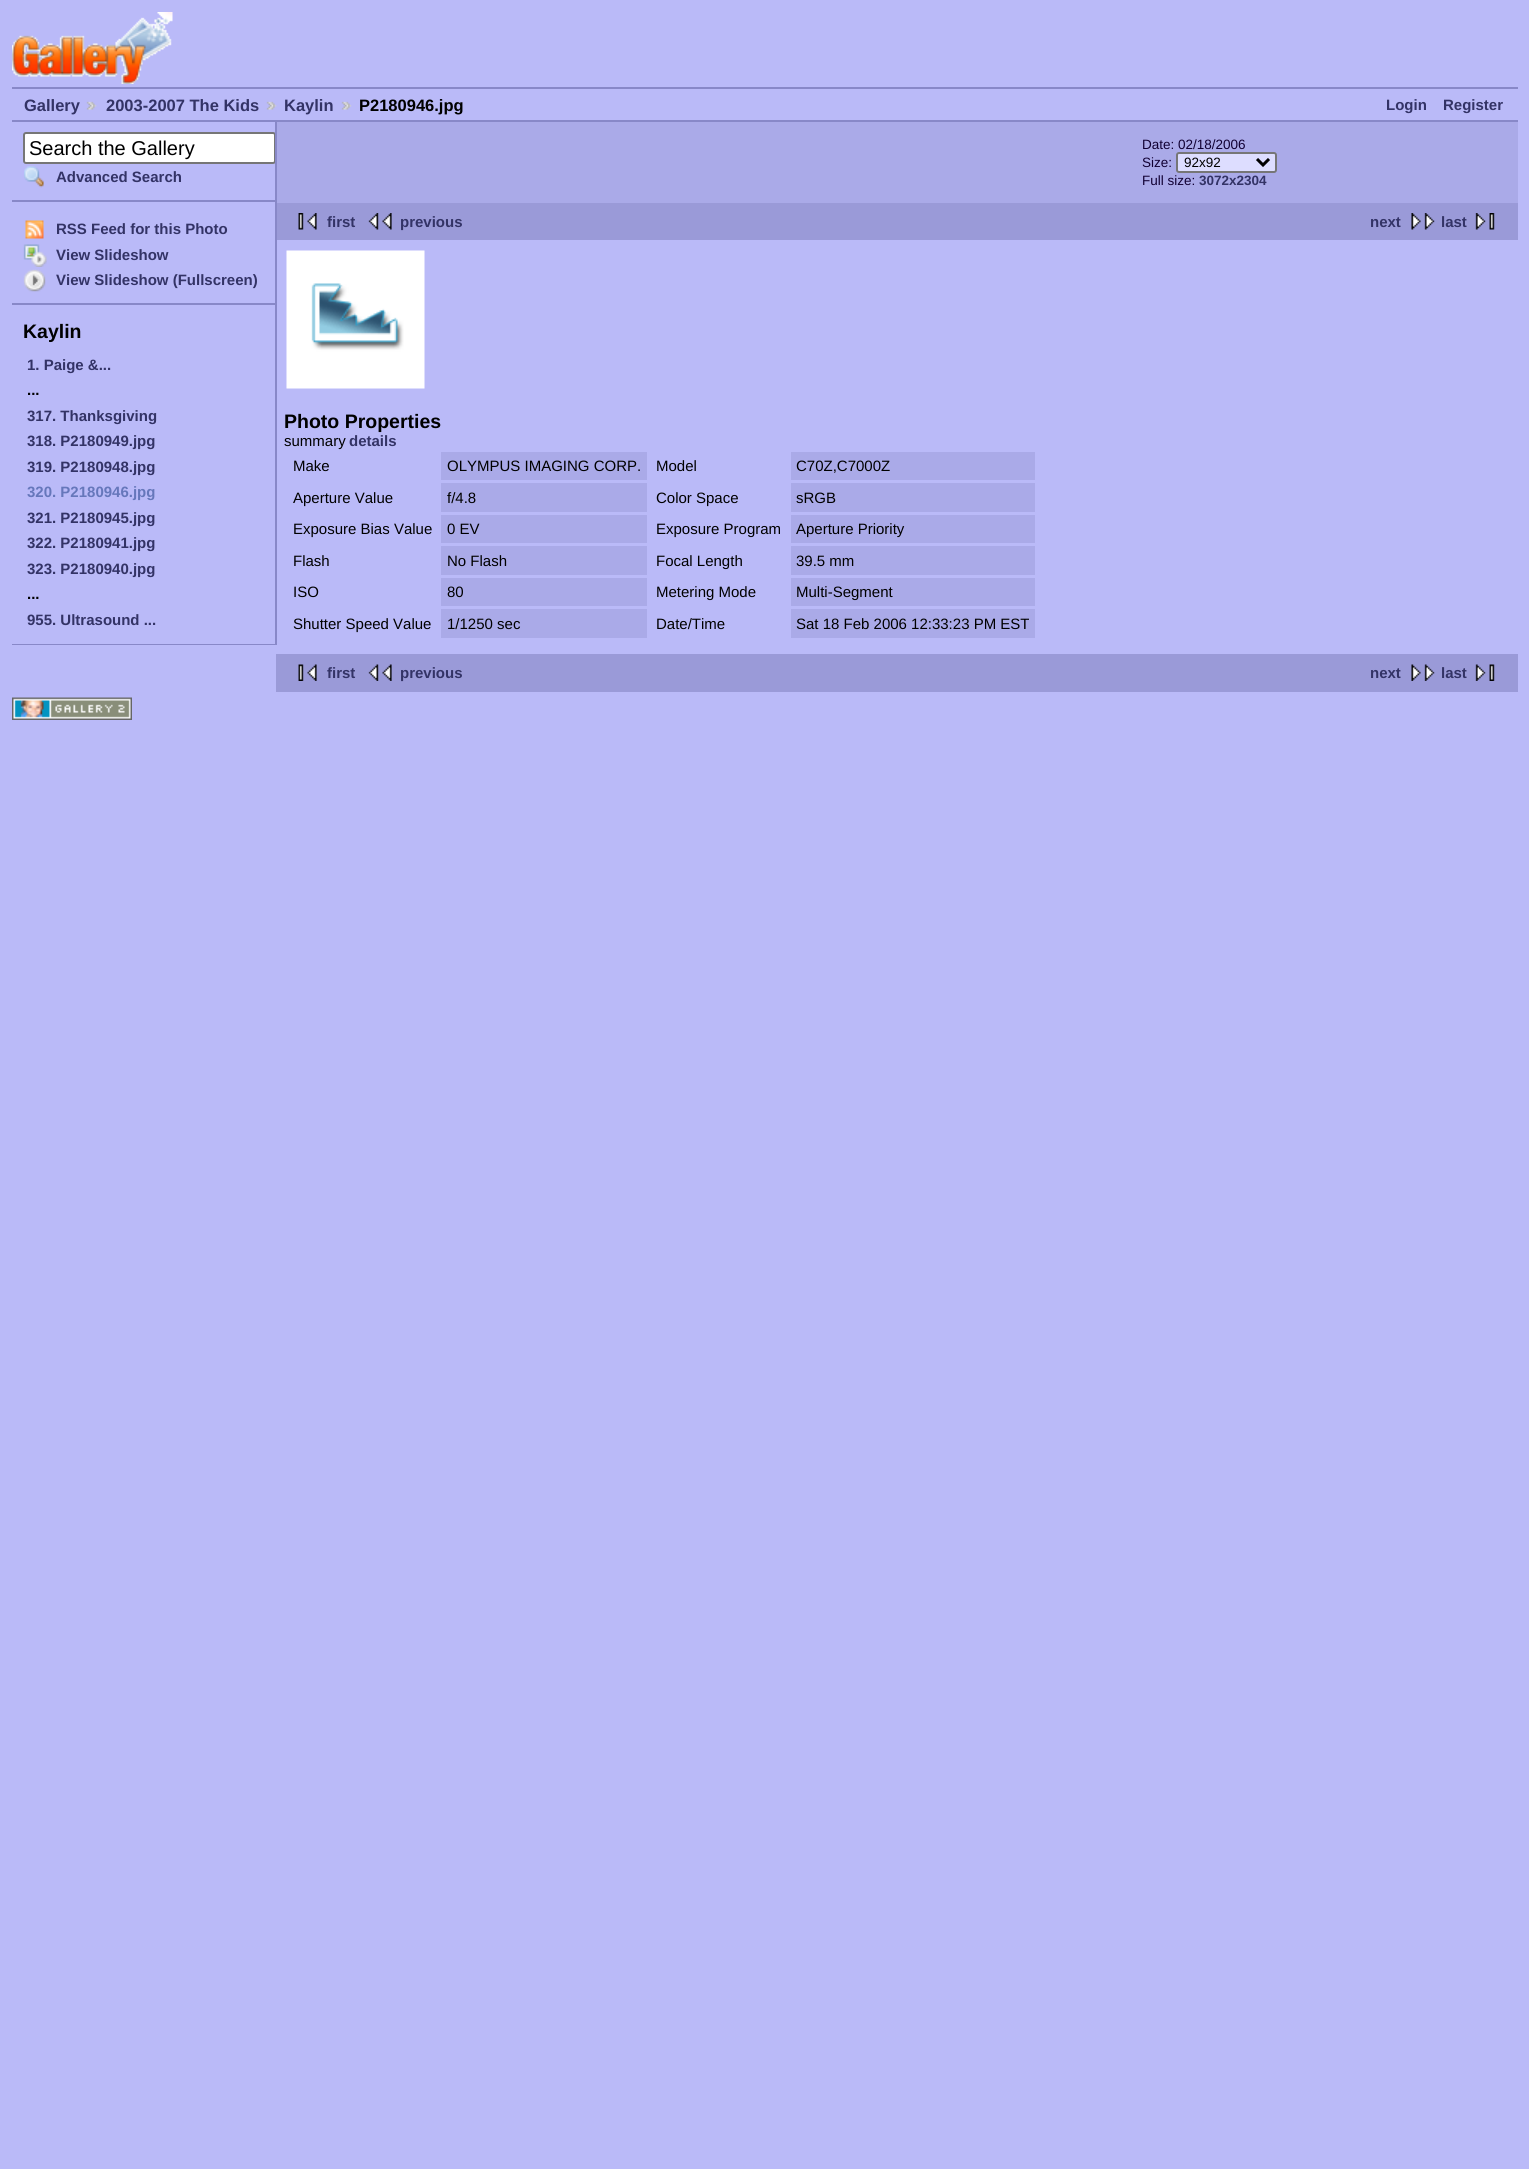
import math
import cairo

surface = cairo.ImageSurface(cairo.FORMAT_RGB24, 1529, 2169)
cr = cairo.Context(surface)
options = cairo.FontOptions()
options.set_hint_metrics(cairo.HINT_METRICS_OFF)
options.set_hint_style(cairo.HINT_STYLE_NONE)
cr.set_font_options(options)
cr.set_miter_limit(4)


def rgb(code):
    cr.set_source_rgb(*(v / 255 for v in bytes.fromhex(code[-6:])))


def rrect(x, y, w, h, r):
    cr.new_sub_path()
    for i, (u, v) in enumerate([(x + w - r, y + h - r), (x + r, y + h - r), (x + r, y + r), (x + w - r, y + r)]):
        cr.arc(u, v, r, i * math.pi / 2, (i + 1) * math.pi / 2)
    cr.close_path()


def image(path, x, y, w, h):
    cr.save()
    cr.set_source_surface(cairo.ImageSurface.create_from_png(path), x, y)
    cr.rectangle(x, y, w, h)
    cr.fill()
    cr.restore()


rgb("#babaf8")
cr.paint()
image("img/1.png", 12, 12, 161, 72)
rgb("#8888c8")
cr.rectangle(12, 87, 1506, 2)
cr.fill()
cr.rectangle(12, 120, 1506, 2)
cr.fill()
image("img/2.png", 86, 101, 11, 9)
image("img/3.png", 266, 101, 11, 9)
image("img/3.png", 341, 101, 11, 9)
cr.rectangle(275, 122, 2, 523)
cr.fill()
cr.rectangle(12, 200, 263, 2)
cr.fill()
cr.save()
cr.rectangle(12, 122, 263, 523)
cr.clip()
rgb("#ffffff")
rrect(24, 133, 251, 30, 2)
cr.fill_preserve()
rgb("#767676")
cr.stroke()
cr.restore()
image("img/4.png", 24, 166, 20, 22)
cr.rectangle(12, 303, 263, 2)
cr.fill()
image("img/5.png", 25, 220, 19, 19)
image("img/6.png", 23, 244, 24, 23)
image("img/7.png", 23, 269, 23, 23)
cr.rectangle(12, 644, 263, 1)
cr.fill()
rgb("#aaaae8")
cr.rectangle(277, 122, 1241, 81)
cr.fill()
rgb("#ddddff")
rrect(1177, 153, 99, 19, 2)
cr.fill_preserve()
rgb("#767676")
cr.stroke()
cr.new_path()
cr.move_to(1257, 159)
cr.line_to(1263, 165)
cr.line_to(1269, 159)
rgb("#000000")
cr.set_line_width(3)
cr.stroke()
rgb("#9a9ad8")
cr.rectangle(277, 203, 1241, 37)
cr.fill()
image("img/8.png", 298, 213, 19, 17)
image("img/9.png", 368, 213, 24, 17)
image("img/10.png", 1411, 213, 24, 17)
image("img/11.png", 1475, 213, 20, 17)
image("img/12.png", 286, 250, 139, 139)
for x, y, w, h, color in [
    (441, 452, 206, 28, "#aaaae8"),
    (791, 452, 244, 28, "#aaaae8"),
    (441, 483, 206, 29, "#aaaae8"),
    (791, 483, 244, 29, "#aaaae8"),
    (441, 515, 206, 28, "#aaaae8"),
    (791, 515, 244, 28, "#aaaae8"),
    (441, 546, 206, 29, "#aaaae8"),
    (791, 546, 244, 29, "#aaaae8"),
    (441, 578, 206, 28, "#aaaae8"),
    (791, 578, 244, 28, "#aaaae8"),
    (441, 609, 206, 29, "#aaaae8"),
    (791, 609, 244, 29, "#aaaae8"),
    (276, 654, 1242, 38, "#9a9ad8"),
]:
    rgb(color)
    cr.rectangle(x, y, w, h)
    cr.fill()
image("img/13.png", 298, 664, 19, 17)
image("img/14.png", 368, 664, 24, 17)
image("img/15.png", 1411, 664, 24, 17)
image("img/16.png", 1475, 664, 20, 17)
image("img/17.png", 12, 697, 120, 23)
cr.select_font_face("Liberation Sans", cairo.FONT_SLANT_NORMAL, cairo.FONT_WEIGHT_BOLD)
cr.set_font_size(16.5)
rgb("#333366")
for x, y, s in [
    (24, 111, "Gallery"),
    (106, 111, "2003-2007 The Kids"),
    (284, 111, "Kaylin"),
]:
    cr.move_to(x, y)
    cr.show_text(s)
rgb("#000000")
cr.move_to(359, 111)
cr.show_text("P2180946.jpg")
cr.set_font_size(15)
rgb("#333366")
cr.move_to(1386, 110)
cr.show_text("Login")
cr.move_to(1443, 110)
cr.show_text("Register")
cr.select_font_face("Liberation Sans")
cr.set_font_size(20)
rgb("#000000")
cr.move_to(29, 155)
cr.show_text("Search the Gallery")
cr.select_font_face("Liberation Sans", cairo.FONT_SLANT_NORMAL, cairo.FONT_WEIGHT_BOLD)
cr.set_font_size(15)
rgb("#333366")
for x, y, s in [
    (56, 182, "Advanced Search"),
    (56, 234, "RSS Feed for this Photo"),
    (56, 260, "View Slideshow"),
    (56, 285, "View Slideshow (Fullscreen)"),
]:
    cr.move_to(x, y)
    cr.show_text(s)
cr.set_font_size(19.5)
rgb("#000000")
cr.move_to(23, 338)
cr.show_text("Kaylin")
cr.set_font_size(15)
rgb("#333366")
cr.move_to(27, 370)
cr.show_text("1. Paige &...")
rgb("#000000")
cr.move_to(27, 395)
cr.show_text("...")
rgb("#333366")
for x, y, s in [
    (27, 421, "317. Thanksgiving"),
    (27, 446, "318. P2180949.jpg"),
    (27, 472, "319. P2180948.jpg"),
]:
    cr.move_to(x, y)
    cr.show_text(s)
rgb("#6677bb")
cr.move_to(27, 497)
cr.show_text("320. P2180946.jpg")
rgb("#333366")
for x, y, s in [
    (27, 523, "321. P2180945.jpg"),
    (27, 548, "322. P2180941.jpg"),
    (27, 574, "323. P2180940.jpg"),
]:
    cr.move_to(x, y)
    cr.show_text(s)
rgb("#000000")
cr.move_to(27, 599)
cr.show_text("...")
rgb("#333366")
cr.move_to(27, 625)
cr.show_text("955. Ultrasound ...")
cr.select_font_face("Liberation Sans")
cr.set_font_size(13.5)
rgb("#110033")
cr.move_to(1142, 149)
cr.show_text("Date: 02/18/2006")
cr.move_to(1142, 167)
cr.show_text("Size:")
rgb("#000000")
cr.move_to(1184, 167)
cr.show_text("92x92")
rgb("#110033")
cr.move_to(1142, 185)
cr.show_text("Full size:")
cr.select_font_face("Liberation Sans", cairo.FONT_SLANT_NORMAL, cairo.FONT_WEIGHT_BOLD)
rgb("#333366")
cr.move_to(1199, 185)
cr.show_text("3072x2304")
cr.set_font_size(15)
for x, y, s in [
    (327, 227, "first"),
    (400, 227, "previous"),
    (1370, 227, "next"),
    (1441, 227, "last"),
]:
    cr.move_to(x, y)
    cr.show_text(s)
cr.set_font_size(19.5)
rgb("#000000")
cr.move_to(284, 428)
cr.show_text("Photo Properties")
cr.select_font_face("Liberation Sans")
cr.set_font_size(15)
cr.move_to(284, 446)
cr.show_text("summary")
cr.select_font_face("Liberation Sans", cairo.FONT_SLANT_NORMAL, cairo.FONT_WEIGHT_BOLD)
rgb("#333366")
cr.move_to(349, 446)
cr.show_text("details")
cr.select_font_face("Liberation Sans")
rgb("#000000")
for x, y, s in [
    (293, 471, "Make"),
    (447, 471, "OLYMPUS IMAGING CORP."),
    (656, 471, "Model"),
    (796, 471, "C70Z,C7000Z"),
    (293, 503, "Aperture Value"),
    (447, 503, "f/4.8"),
    (656, 503, "Color Space"),
    (796, 503, "sRGB"),
    (293, 534, "Exposure Bias Value"),
    (447, 534, "0 EV"),
    (656, 534, "Exposure Program"),
    (796, 534, "Aperture Priority"),
    (293, 566, "Flash"),
    (447, 566, "No Flash"),
    (656, 566, "Focal Length"),
    (796, 566, "39.5 mm"),
    (293, 597, "ISO"),
    (447, 597, "80"),
    (656, 597, "Metering Mode"),
    (796, 597, "Multi-Segment"),
    (293, 629, "Shutter Speed Value"),
    (447, 629, "1/1250 sec"),
    (656, 629, "Date/Time"),
    (796, 629, "Sat 18 Feb 2006 12:33:23 PM EST"),
]:
    cr.move_to(x, y)
    cr.show_text(s)
cr.select_font_face("Liberation Sans", cairo.FONT_SLANT_NORMAL, cairo.FONT_WEIGHT_BOLD)
rgb("#333366")
for x, y, s in [
    (327, 678, "first"),
    (400, 678, "previous"),
    (1370, 678, "next"),
    (1441, 678, "last"),
]:
    cr.move_to(x, y)
    cr.show_text(s)
surface.write_to_png("page.png")
